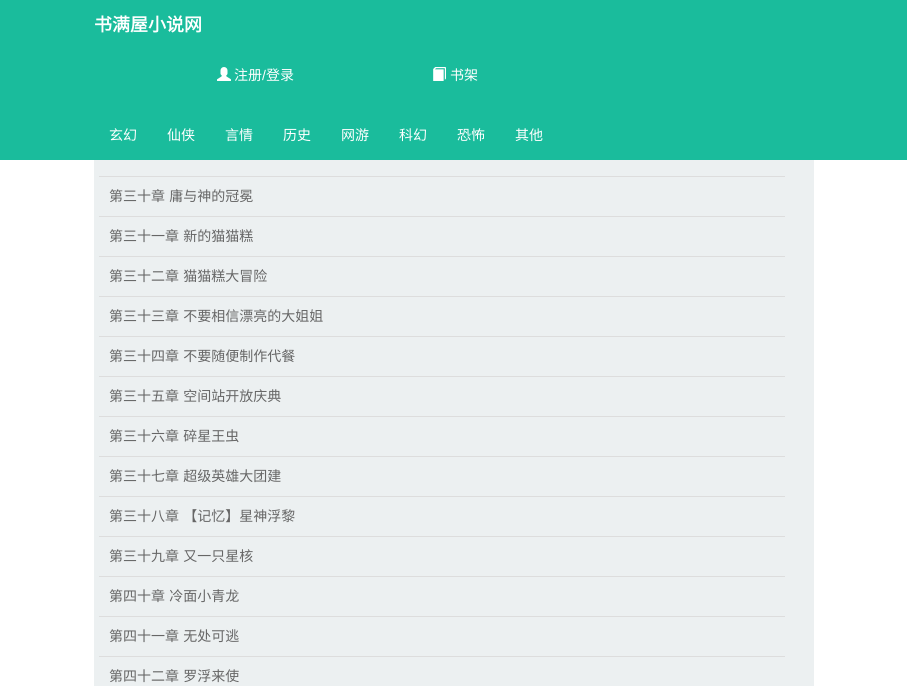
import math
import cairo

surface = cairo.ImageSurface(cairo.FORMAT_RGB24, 907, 686)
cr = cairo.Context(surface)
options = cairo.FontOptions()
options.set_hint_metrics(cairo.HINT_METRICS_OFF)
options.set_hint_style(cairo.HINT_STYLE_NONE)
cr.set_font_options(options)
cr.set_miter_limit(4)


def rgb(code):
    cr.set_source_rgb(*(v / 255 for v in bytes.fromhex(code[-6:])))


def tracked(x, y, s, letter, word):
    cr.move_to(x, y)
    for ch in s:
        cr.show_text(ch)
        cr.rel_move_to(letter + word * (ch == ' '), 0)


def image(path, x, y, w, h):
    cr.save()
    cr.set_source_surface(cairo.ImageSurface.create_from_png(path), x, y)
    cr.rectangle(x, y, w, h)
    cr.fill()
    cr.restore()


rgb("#ffffff")
cr.paint()
rgb("#1abc9c")
cr.rectangle(0, 0, 907, 160)
cr.fill()
image("img/1.png", 217, 67, 14, 14)
image("img/2.png", 433, 67, 13, 14)
for x, y, w, h, color in [
    (94, 160, 720, 526, "#ecf0f1"),
    (99, 176, 686, 1, "#dddddd"),
    (99, 216, 686, 1, "#dddddd"),
    (99, 256, 686, 1, "#dddddd"),
    (99, 296, 686, 1, "#dddddd"),
    (99, 336, 686, 1, "#dddddd"),
    (99, 376, 686, 1, "#dddddd"),
    (99, 416, 686, 1, "#dddddd"),
    (99, 456, 686, 1, "#dddddd"),
    (99, 496, 686, 1, "#dddddd"),
    (99, 536, 686, 1, "#dddddd"),
    (99, 576, 686, 1, "#dddddd"),
    (99, 616, 686, 1, "#dddddd"),
    (99, 656, 686, 1, "#dddddd"),
]:
    rgb(color)
    cr.rectangle(x, y, w, h)
    cr.fill()
cr.select_font_face("Noto Sans CJK SC", cairo.FONT_SLANT_NORMAL, cairo.FONT_WEIGHT_BOLD)
cr.set_font_size(18)
rgb("#ffffff")
cr.move_to(94, 31)
cr.show_text("书满屋小说网")
cr.select_font_face("Noto Sans CJK SC")
cr.set_font_size(14)
cr.move_to(234, 80)
cr.show_text("注册")
cr.select_font_face("Liberation Sans")
cr.move_to(262, 80)
cr.show_text("/")
cr.select_font_face("Noto Sans CJK SC")
for x, y, s in [
    (266, 80, "登录"),
    (450, 80, "书架"),
    (109, 140, "玄幻"),
    (167, 140, "仙侠"),
    (225, 140, "言情"),
    (283, 140, "历史"),
    (341, 140, "网游"),
    (399, 140, "科幻"),
    (457, 140, "恐怖"),
    (515, 140, "其他"),
]:
    cr.move_to(x, y)
    cr.show_text(s)
rgb("#666666")
for x, y, s in [
    (109, 201, "第三十章 庸与神的冠冕"),
    (109, 241, "第三十一章 新的猫猫糕"),
    (109, 281, "第三十二章 猫猫糕大冒险"),
    (109, 321, "第三十三章 不要相信漂亮的大姐姐"),
    (109, 361, "第三十四章 不要随便制作代餐"),
    (109, 401, "第三十五章 空间站开放庆典"),
    (109, 441, "第三十六章 碎星王虫"),
    (109, 481, "第三十七章 超级英雄大团建"),
    (109, 521, "第三十八章 【记忆】星神浮黎"),
    (109, 561, "第三十九章 又一只星核"),
    (109, 601, "第四十章 冷面小青龙"),
    (109, 641, "第四十一章 无处可逃"),
    (109, 681, "第四十二章 罗浮来使"),
]:
    tracked(x, y, s, 0, 1)
surface.write_to_png("page.png")
